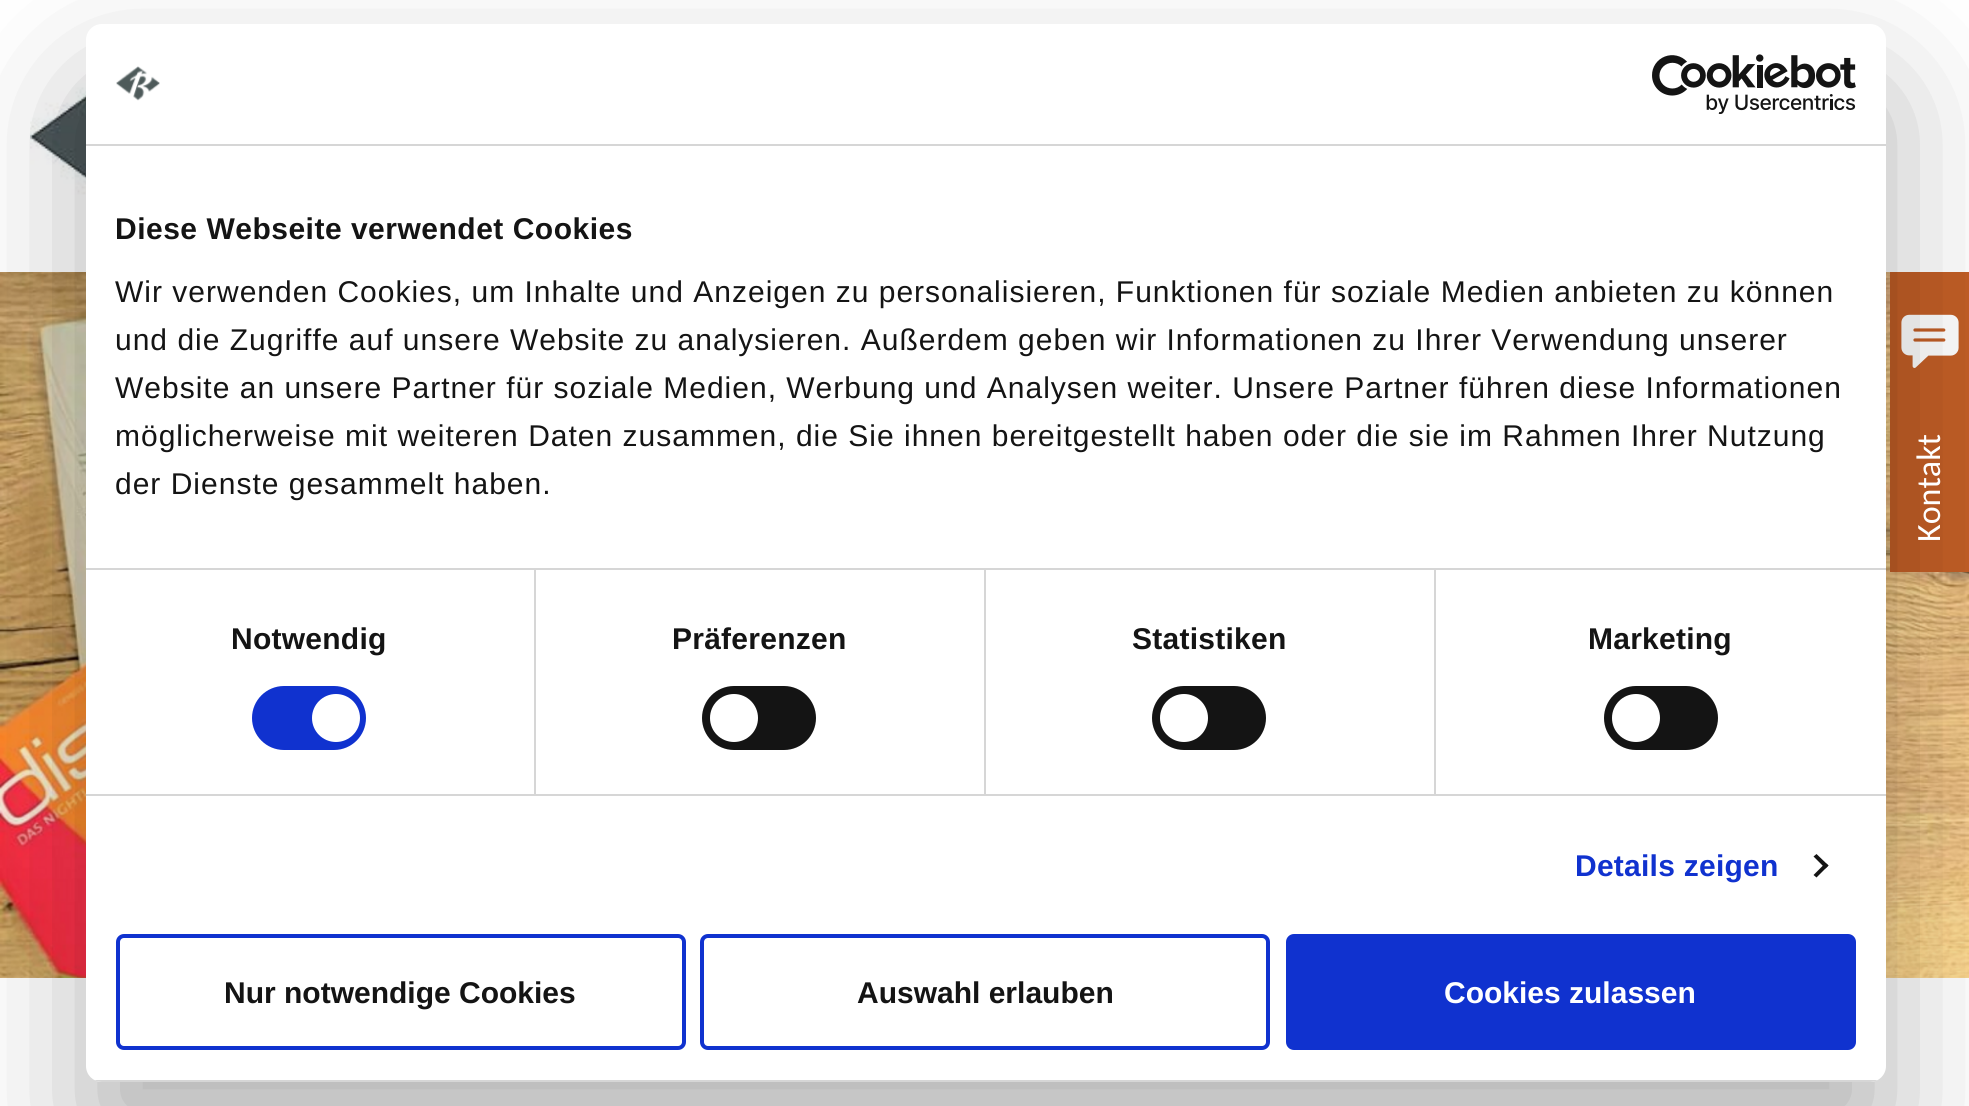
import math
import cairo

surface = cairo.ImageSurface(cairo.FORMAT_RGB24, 1969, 1106)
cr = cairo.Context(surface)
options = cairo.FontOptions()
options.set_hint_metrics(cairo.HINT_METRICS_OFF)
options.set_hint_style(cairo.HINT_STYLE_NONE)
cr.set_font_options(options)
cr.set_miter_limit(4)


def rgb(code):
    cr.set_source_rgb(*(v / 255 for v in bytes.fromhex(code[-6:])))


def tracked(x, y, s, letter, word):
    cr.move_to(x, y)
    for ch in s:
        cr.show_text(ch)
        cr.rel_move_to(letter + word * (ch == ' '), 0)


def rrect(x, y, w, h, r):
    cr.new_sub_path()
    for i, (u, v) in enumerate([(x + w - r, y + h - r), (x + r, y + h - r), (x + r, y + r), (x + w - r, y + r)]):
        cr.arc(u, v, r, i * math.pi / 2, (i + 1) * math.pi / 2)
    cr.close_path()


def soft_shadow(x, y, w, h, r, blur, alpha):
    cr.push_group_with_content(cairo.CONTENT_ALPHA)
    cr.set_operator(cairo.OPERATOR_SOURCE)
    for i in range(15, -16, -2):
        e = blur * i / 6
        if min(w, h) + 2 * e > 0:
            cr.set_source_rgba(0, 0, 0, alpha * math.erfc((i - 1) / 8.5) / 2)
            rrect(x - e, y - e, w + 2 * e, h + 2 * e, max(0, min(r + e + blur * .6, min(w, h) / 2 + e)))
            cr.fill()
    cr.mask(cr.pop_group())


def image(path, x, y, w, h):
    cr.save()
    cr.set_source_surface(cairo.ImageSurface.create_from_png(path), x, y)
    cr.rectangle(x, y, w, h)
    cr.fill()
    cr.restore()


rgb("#ffffff")
cr.paint()
image("img/3.png", 30, 42, 56, 190)
image("img/4.png", 0, 272, 1969, 706)
rgb("#c25e26")
cr.rectangle(1890, 272, 79, 300)
cr.fill()
image("img/5.png", 1901, 314, 58, 54)
rgb("#000000")
soft_shadow(86, 88, 1800, 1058, 16, 68, 0.3)
rgb("#ffffff")
rrect(86, 24, 1800, 1058, 16)
cr.fill()
rgb("#d6d6d6")
cr.rectangle(86, 144, 1800, 2)
cr.fill()
image("img/1.png", 116, 66, 44, 35)
image("img/2.png", 1652, 54, 204, 60)
for x, y, w, h, color in [
    (86, 568, 1800, 2, "#d6d6d6"),
    (86, 794, 1800, 2, "#d6d6d6"),
    (534, 570, 2, 224, "#d6d6d6"),
]:
    rgb(color)
    cr.rectangle(x, y, w, h)
    cr.fill()
rgb("#1032cf")
rrect(252, 686, 114, 64, 32)
cr.fill()
rgb("#ffffff")
cr.arc(336, 718, 24, 0, 2 * math.pi)
cr.fill()
rgb("#d6d6d6")
cr.rectangle(984, 570, 2, 224)
cr.fill()
rgb("#141414")
rrect(702, 686, 114, 64, 32)
cr.fill()
rgb("#ffffff")
cr.arc(734, 718, 24, 0, 2 * math.pi)
cr.fill()
rgb("#d6d6d6")
cr.rectangle(1434, 570, 2, 224)
cr.fill()
rgb("#141414")
rrect(1152, 686, 114, 64, 32)
cr.fill()
rgb("#ffffff")
cr.arc(1184, 718, 24, 0, 2 * math.pi)
cr.fill()
rgb("#141414")
rrect(1604, 686, 114, 64, 32)
cr.fill()
rgb("#ffffff")
cr.arc(1636, 718, 24, 0, 2 * math.pi)
cr.fill()
rgb("#141414")
cr.new_path()
cr.move_to(1816.5, 854)
cr.line_to(1828.5, 865.5)
cr.line_to(1825.5, 868.5)
cr.line_to(1813.5, 856.5)
cr.close_path()
cr.fill()
cr.new_path()
cr.move_to(1825.5, 863)
cr.line_to(1828.5, 865.5)
cr.line_to(1816.5, 877.5)
cr.line_to(1813.5, 875)
cr.close_path()
cr.fill()
cr.save()
rrect(86, 24, 1800, 1058, 16)
cr.clip()
rgb("#d6d6d6")
cr.rectangle(86, 1080, 1800, 2)
cr.fill()
cr.restore()
rrect(118, 936, 566, 112, 6)
rgb("#1032cf")
cr.set_line_width(4)
cr.stroke()
rrect(702, 936, 566, 112, 6)
cr.stroke()
rrect(1288, 936, 566, 112, 6)
cr.fill_preserve()
cr.stroke()
cr.select_font_face("Liberation Sans", cairo.FONT_SLANT_NORMAL, cairo.FONT_WEIGHT_BOLD)
cr.set_font_size(30)
rgb("#141414")
tracked(115, 239, "Diese Webseite verwendet Cookies", 0.5, 0)
cr.select_font_face("Liberation Sans")
for x, y, s in [
    (115, 302, "Wir verwenden Cookies, um Inhalte und Anzeigen zu personalisieren, Funktionen für soziale Medien anbieten zu können"),
    (115, 350, "und die Zugriffe auf unsere Website zu analysieren. Außerdem geben wir Informationen zu Ihrer Verwendung unserer"),
    (115, 398, "Website an unsere Partner für soziale Medien, Werbung und Analysen weiter. Unsere Partner führen diese Informationen"),
    (115, 446, "möglicherweise mit weiteren Daten zusammen, die Sie ihnen bereitgestellt haben oder die sie im Rahmen Ihrer Nutzung"),
    (115, 494, "der Dienste gesammelt haben."),
]:
    tracked(x, y, s, 1, 0)
cr.select_font_face("Liberation Sans", cairo.FONT_SLANT_NORMAL, cairo.FONT_WEIGHT_BOLD)
for x, y, s in [
    (231, 649, "Notwendig"),
    (672, 649, "Präferenzen"),
    (1132, 649, "Statistiken"),
    (1588, 649, "Marketing"),
]:
    tracked(x, y, s, 0.25, 0)
rgb("#1032cf")
tracked(1575, 876, "Details zeigen", 0.25, 0)
rgb("#141414")
cr.move_to(224, 1003)
cr.show_text("Nur notwendige Cookies")
cr.move_to(857, 1003)
cr.show_text("Auswahl erlauben")
rgb("#ffffff")
cr.move_to(1444, 1003)
cr.show_text("Cookies zulassen")
cr.select_font_face("Carlito")
cr.set_font_size(34)
cr.save()
cr.translate(1940, 542)
cr.rotate(-90 * math.pi / 180)
cr.move_to(0, 0)
cr.show_text("Kontakt")
cr.restore()
surface.write_to_png("page.png")
